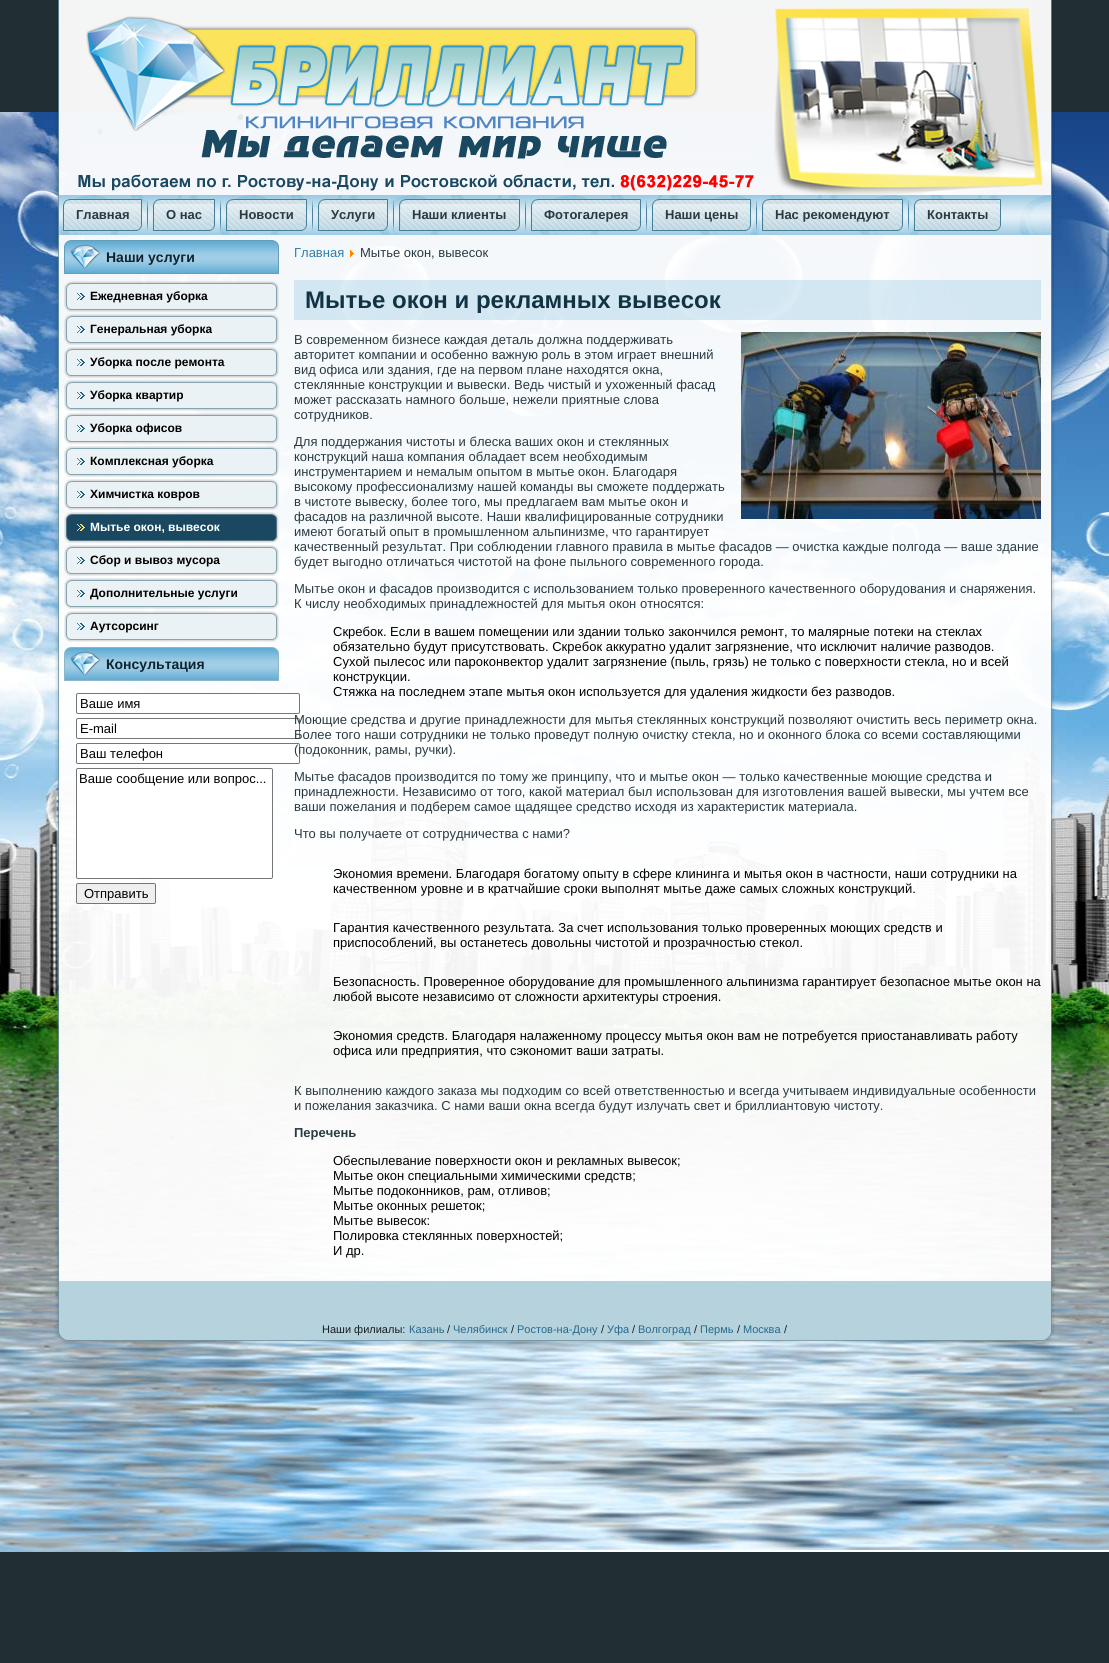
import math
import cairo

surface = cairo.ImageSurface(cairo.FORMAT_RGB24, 1109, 1663)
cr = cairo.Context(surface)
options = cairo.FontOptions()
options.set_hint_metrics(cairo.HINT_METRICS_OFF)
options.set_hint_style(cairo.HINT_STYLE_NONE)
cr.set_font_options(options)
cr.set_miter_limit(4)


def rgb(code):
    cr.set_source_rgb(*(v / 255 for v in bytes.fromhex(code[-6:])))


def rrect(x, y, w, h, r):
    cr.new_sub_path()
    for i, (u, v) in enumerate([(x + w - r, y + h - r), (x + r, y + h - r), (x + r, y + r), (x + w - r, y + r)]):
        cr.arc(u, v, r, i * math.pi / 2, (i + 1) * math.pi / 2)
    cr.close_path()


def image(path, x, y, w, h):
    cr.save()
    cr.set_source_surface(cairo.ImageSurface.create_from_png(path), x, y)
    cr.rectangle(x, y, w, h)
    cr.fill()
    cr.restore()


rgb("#212f35")
cr.paint()
image("img/1.png", 0, 112, 1109, 1440)
image("img/2.png", 57, 0, 21, 22)
rgb("#f4f5f5")
cr.rectangle(78, 0, 954, 22)
cr.fill()
image("img/3.png", 1032, 0, 21, 22)
image("img/4.png", 55, 22, 23, 1299)
cr.set_source_rgba(1, 1, 1, 0.95)
cr.rectangle(78, 22, 954, 1259)
cr.fill()
image("img/5.png", 1032, 22, 23, 1299)
image("img/6.png", 55, 1321, 23, 23)
image("img/7.png", 78, 7, 966, 188)
image("img/8.png", 59, 195, 982, 40)
image("img/9.png", 1041, 195, 10, 40)
image("img/10.png", 63, 199, 72, 32)
image("img/11.png", 135, 199, 7, 32)
image("img/12.png", 147, 200, 1, 31)
image("img/13.png", 153, 199, 55, 32)
image("img/14.png", 208, 199, 7, 32)
image("img/15.png", 220, 200, 1, 31)
image("img/16.png", 226, 199, 74, 32)
image("img/14.png", 300, 199, 7, 32)
image("img/17.png", 312, 200, 1, 31)
image("img/18.png", 318, 199, 63, 32)
image("img/19.png", 381, 199, 7, 32)
image("img/20.png", 393, 200, 1, 31)
image("img/21.png", 399, 199, 114, 32)
image("img/14.png", 513, 199, 7, 32)
image("img/22.png", 525, 200, 1, 31)
image("img/23.png", 531, 199, 103, 32)
image("img/14.png", 634, 199, 7, 32)
image("img/24.png", 646, 200, 1, 31)
image("img/25.png", 652, 199, 92, 32)
image("img/14.png", 744, 199, 7, 32)
image("img/26.png", 756, 200, 1, 31)
image("img/27.png", 762, 199, 134, 32)
image("img/11.png", 896, 199, 7, 32)
image("img/28.png", 908, 200, 1, 31)
image("img/29.png", 914, 199, 80, 32)
image("img/14.png", 994, 199, 7, 32)
image("img/30.png", 64, 240, 179, 34)
image("img/31.png", 243, 240, 36, 34)
image("img/32.png", 64, 281, 194, 31)
image("img/33.png", 258, 281, 21, 31)
image("img/34.png", 64, 314, 194, 31)
image("img/35.png", 258, 314, 21, 31)
image("img/36.png", 64, 347, 194, 31)
image("img/37.png", 258, 347, 21, 31)
image("img/38.png", 64, 380, 194, 31)
image("img/39.png", 258, 380, 21, 31)
image("img/40.png", 64, 413, 194, 31)
image("img/41.png", 258, 413, 21, 31)
image("img/42.png", 64, 446, 194, 31)
image("img/43.png", 258, 446, 21, 31)
image("img/44.png", 64, 479, 194, 31)
image("img/45.png", 258, 479, 21, 31)
image("img/46.png", 64, 512, 194, 31)
image("img/47.png", 258, 512, 21, 31)
image("img/48.png", 64, 545, 194, 31)
image("img/49.png", 258, 545, 21, 31)
image("img/50.png", 64, 578, 194, 31)
image("img/51.png", 258, 578, 21, 31)
image("img/52.png", 64, 611, 194, 31)
image("img/53.png", 258, 611, 21, 31)
image("img/54.png", 64, 647, 179, 34)
image("img/55.png", 243, 647, 36, 34)
rgb("#ffffff")
rrect(76.5, 693.5, 223, 20, 1.5)
cr.fill_preserve()
rgb("#767676")
cr.set_line_width(1)
cr.stroke()
rgb("#ffffff")
rrect(76.5, 718.5, 223, 20, 1.5)
cr.fill_preserve()
rgb("#767676")
cr.stroke()
rgb("#ffffff")
rrect(76.5, 743.5, 223, 20, 1.5)
cr.fill_preserve()
rgb("#767676")
cr.stroke()
rgb("#ffffff")
rrect(76.5, 768.5, 196, 110, 1.5)
cr.fill_preserve()
rgb("#767676")
cr.stroke()
rgb("#efefef")
rrect(76.5, 883.5, 79, 20, 1.5)
cr.fill_preserve()
rgb("#767676")
cr.stroke()
image("img/56.png", 350, 250, 4, 7)
cr.set_source_rgba(0.514, 0.749, 0.867, 0.3)
cr.rectangle(294, 280, 747, 40)
cr.fill()
image("img/57.png", 741, 332, 300, 187)
image("img/60.png", 1032, 1321, 23, 23)
rgb("#b6d2dd")
cr.rectangle(59, 1281, 992, 49)
cr.fill()
image("img/58.png", 59, 1330, 10, 10)
cr.rectangle(69, 1330, 972, 10)
cr.fill()
image("img/59.png", 1041, 1330, 10, 10)
image("img/61.png", 78, 1340, 954, 4)
cr.select_font_face("Liberation Sans", cairo.FONT_SLANT_NORMAL, cairo.FONT_WEIGHT_BOLD)
cr.set_font_size(13)
rgb("#293a42")
for x, y, s in [
    (76, 219, "Главная"),
    (166, 219, "О нас"),
    (239, 219, "Новости"),
    (331, 219, "Услуги"),
    (412, 219, "Наши клиенты"),
    (544, 219, "Фотогалерея"),
    (665, 219, "Наши цены"),
    (775, 219, "Нас рекомендуют"),
    (927, 219, "Контакты"),
]:
    cr.move_to(x, y)
    cr.show_text(s)
cr.set_font_size(14)
rgb("#0d2430")
cr.move_to(106, 262)
cr.show_text("Наши услуги")
cr.set_font_size(12)
rgb("#000000")
for x, y, s in [
    (90, 300, "Ежедневная уборка"),
    (90, 333, "Генеральная уборка"),
    (90, 366, "Уборка после ремонта"),
    (90, 399, "Уборка квартир"),
    (90, 432, "Уборка офисов"),
    (90, 465, "Комплексная уборка"),
    (90, 498, "Химчистка ковров"),
]:
    cr.move_to(x, y)
    cr.show_text(s)
rgb("#ffffff")
cr.move_to(90, 531)
cr.show_text("Мытье окон, вывесок")
rgb("#000000")
for x, y, s in [
    (90, 564, "Сбор и вывоз мусора"),
    (90, 597, "Дополнительные услуги"),
    (90, 630, "Аутсорсинг"),
]:
    cr.move_to(x, y)
    cr.show_text(s)
cr.set_font_size(14)
rgb("#0d2430")
cr.move_to(106, 669)
cr.show_text("Консультация")
cr.select_font_face("Liberation Sans")
cr.set_font_size(13)
rgb("#000000")
for x, y, s in [
    (80, 708, "Ваше имя"),
    (80, 733, "E-mail"),
    (80, 758, "Ваш телефон"),
    (79, 783, "Ваше сообщение или вопрос..."),
    (84, 898, "Отправить"),
]:
    cr.move_to(x, y)
    cr.show_text(s)
rgb("#2d7ea9")
cr.move_to(294, 257)
cr.show_text("Главная")
rgb("#293a42")
cr.move_to(360, 257)
cr.show_text("Мытье окон, вывесок")
cr.select_font_face("Liberation Sans", cairo.FONT_SLANT_NORMAL, cairo.FONT_WEIGHT_BOLD)
cr.set_font_size(24)
rgb("#123344")
cr.move_to(305, 308)
cr.show_text("Мытье окон и рекламных вывесок")
cr.select_font_face("Liberation Sans")
cr.set_font_size(13)
rgb("#293a42")
for x, y, s in [
    (294, 344, "В современном бизнесе каждая деталь должна поддерживать"),
    (294, 359, "авторитет компании и особенно важную роль в этом играет внешний"),
    (294, 374, "вид офиса или здания, где на первом плане находятся окна,"),
    (294, 389, "стеклянные конструкции и вывески. Ведь чистый и ухоженный фасад"),
    (294, 404, "может рассказать намного больше, нежели приятные слова"),
    (294, 419, "сотрудников."),
    (294, 446, "Для поддержания чистоты и блеска ваших окон и стеклянных"),
    (294, 461, "конструкций наша компания обладает всем необходимым"),
    (294, 476, "инструментарием и немалым опытом в мытье окон. Благодаря"),
    (294, 491, "высокому профессионализму нашей команды вы сможете поддержать"),
    (294, 506, "в чистоте вывеску, более того, мы предлагаем вам мытье окон и"),
    (294, 521, "фасадов на различной высоте. Наши квалифицированные сотрудники"),
    (294, 536, "имеют богатый опыт в промышленном альпинизме, что гарантирует"),
    (294, 551, "качественный результат. При соблюдении главного правила в мытье фасадов — очистка каждые полгода — ваше здание"),
    (294, 566, "будет выгодно отличаться чистотой на фоне пыльного современного города."),
    (294, 593, "Мытье окон и фасадов производится с использованием только проверенного качественного оборудования и снаряжения."),
    (294, 608, "К числу необходимых принадлежностей для мытья окон относятся:"),
]:
    cr.move_to(x, y)
    cr.show_text(s)
rgb("#000000")
for x, y, s in [
    (333, 636, "Скребок. Если в вашем помещении или здании только закончился ремонт, то малярные потеки на стеклах"),
    (333, 651, "обязательно будут присутствовать. Скребок аккуратно удалит загрязнение, что исключит наличие разводов."),
    (333, 666, "Сухой пылесос или пароконвектор удалит загрязнение (пыль, грязь) не только с поверхности стекла, но и всей"),
    (333, 681, "конструкции."),
    (333, 696, "Стяжка на последнем этапе мытья окон используется для удаления жидкости без разводов."),
]:
    cr.move_to(x, y)
    cr.show_text(s)
rgb("#293a42")
for x, y, s in [
    (294, 724, "Моющие средства и другие принадлежности для мытья стеклянных конструкций позволяют очистить весь периметр окна."),
    (294, 739, "Более того наши сотрудники не только проведут полную очистку стекла, но и оконного блока со всеми составляющими"),
    (294, 754, "(подоконник, рамы, ручки)."),
    (294, 781, "Мытье фасадов производится по тому же принципу, что и мытье окон — только качественные моющие средства и"),
    (294, 796, "принадлежности. Независимо от того, какой материал был использован для изготовления вашей вывески, мы учтем все"),
    (294, 811, "ваши пожелания и подберем самое щадящее средство исходя из характеристик материала."),
    (294, 838, "Что вы получаете от сотрудничества с нами?"),
]:
    cr.move_to(x, y)
    cr.show_text(s)
rgb("#000000")
for x, y, s in [
    (333, 878, "Экономия времени. Благодаря богатому опыту в сфере клининга и мытья окон в частности, наши сотрудники на"),
    (333, 893, "качественном уровне и в кратчайшие сроки выполнят мытье даже самых сложных конструкций."),
    (333, 932, "Гарантия качественного результата. За счет использования только проверенных моющих средств и"),
    (333, 947, "приспособлений, вы останетесь довольны чистотой и прозрачностью стекол."),
    (333, 986, "Безопасность. Проверенное оборудование для промышленного альпинизма гарантирует безопасное мытье окон на"),
    (333, 1001, "любой высоте независимо от сложности архитектуры строения."),
    (333, 1040, "Экономия средств. Благодаря налаженному процессу мытья окон вам не потребуется приостанавливать работу"),
    (333, 1055, "офиса или предприятия, что сэкономит ваши затраты."),
]:
    cr.move_to(x, y)
    cr.show_text(s)
rgb("#293a42")
cr.move_to(294, 1095)
cr.show_text("К выполнению каждого заказа мы подходим со всей ответственностью и всегда учитываем индивидуальные особенности")
cr.move_to(294, 1110)
cr.show_text("и пожелания заказчика. С нами ваши окна всегда будут излучать свет и бриллиантовую чистоту.")
cr.select_font_face("Liberation Sans", cairo.FONT_SLANT_NORMAL, cairo.FONT_WEIGHT_BOLD)
cr.move_to(294, 1137)
cr.show_text("Перечень")
cr.select_font_face("Liberation Sans")
rgb("#000000")
for x, y, s in [
    (333, 1165, "Обеспылевание поверхности окон и рекламных вывесок;"),
    (333, 1180, "Мытье окон специальными химическими средств;"),
    (333, 1195, "Мытье подоконников, рам, отливов;"),
    (333, 1210, "Мытье оконных решеток;"),
    (333, 1225, "Мытье вывесок:"),
    (333, 1240, "Полировка стеклянных поверхностей;"),
    (333, 1255, "И др."),
]:
    cr.move_to(x, y)
    cr.show_text(s)
cr.set_font_size(11)
rgb("#161e23")
cr.move_to(322, 1333)
cr.show_text("Наши филиалы:")
rgb("#25698d")
cr.move_to(409, 1333)
cr.show_text("Казань")
rgb("#161e23")
cr.move_to(447, 1333)
cr.show_text("/")
rgb("#25698d")
cr.move_to(453, 1333)
cr.show_text("Челябинск")
rgb("#161e23")
cr.move_to(511, 1333)
cr.show_text("/")
rgb("#25698d")
cr.move_to(517, 1333)
cr.show_text("Ростов-на-Дону")
rgb("#161e23")
cr.move_to(601, 1333)
cr.show_text("/")
rgb("#25698d")
cr.move_to(607, 1333)
cr.show_text("Уфа")
rgb("#161e23")
cr.move_to(632, 1333)
cr.show_text("/")
rgb("#25698d")
cr.move_to(638, 1333)
cr.show_text("Волгоград")
rgb("#161e23")
cr.move_to(694, 1333)
cr.show_text("/")
rgb("#25698d")
cr.move_to(700, 1333)
cr.show_text("Пермь")
rgb("#161e23")
cr.move_to(737, 1333)
cr.show_text("/")
rgb("#25698d")
cr.move_to(743, 1333)
cr.show_text("Москва")
rgb("#161e23")
cr.move_to(784, 1333)
cr.show_text("/")
surface.write_to_png("page.png")
